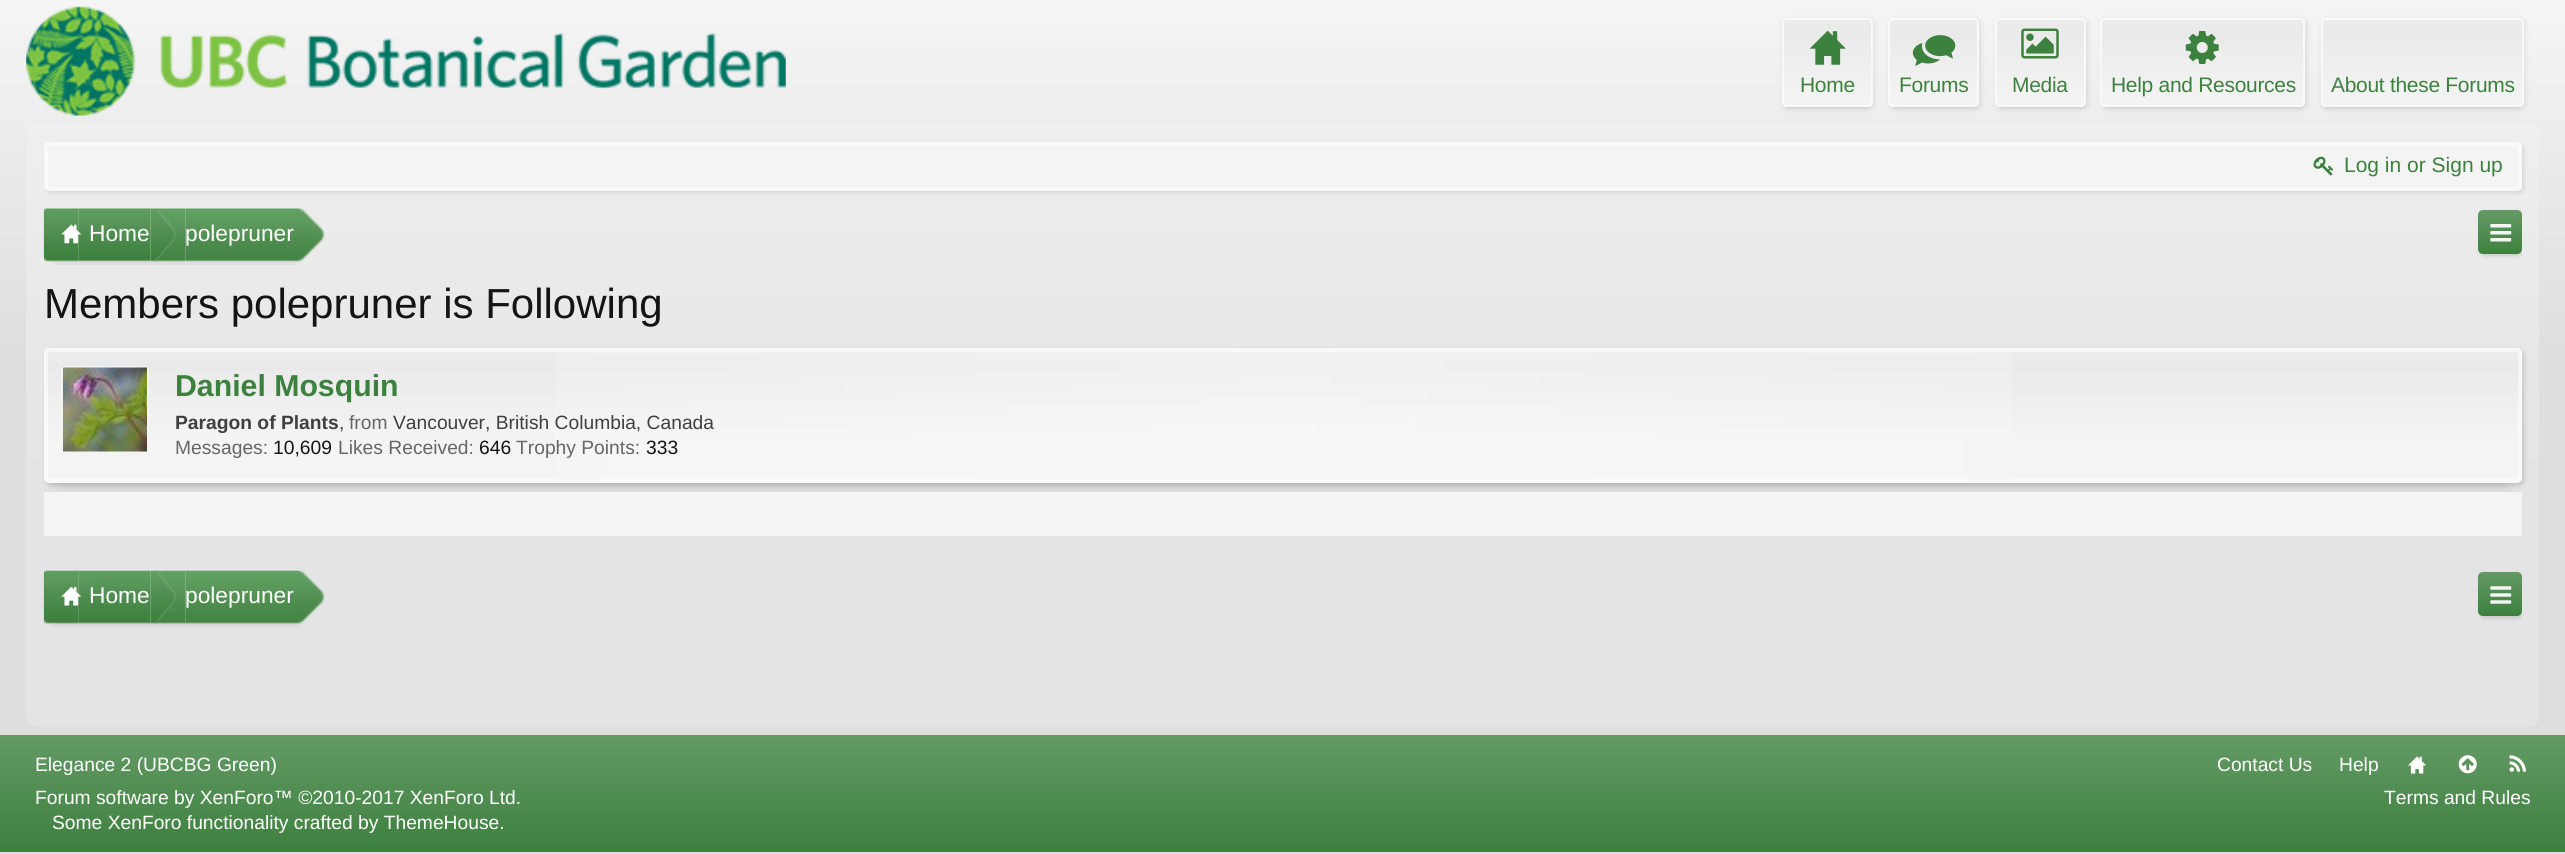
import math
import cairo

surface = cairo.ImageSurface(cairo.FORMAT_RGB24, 2565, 854)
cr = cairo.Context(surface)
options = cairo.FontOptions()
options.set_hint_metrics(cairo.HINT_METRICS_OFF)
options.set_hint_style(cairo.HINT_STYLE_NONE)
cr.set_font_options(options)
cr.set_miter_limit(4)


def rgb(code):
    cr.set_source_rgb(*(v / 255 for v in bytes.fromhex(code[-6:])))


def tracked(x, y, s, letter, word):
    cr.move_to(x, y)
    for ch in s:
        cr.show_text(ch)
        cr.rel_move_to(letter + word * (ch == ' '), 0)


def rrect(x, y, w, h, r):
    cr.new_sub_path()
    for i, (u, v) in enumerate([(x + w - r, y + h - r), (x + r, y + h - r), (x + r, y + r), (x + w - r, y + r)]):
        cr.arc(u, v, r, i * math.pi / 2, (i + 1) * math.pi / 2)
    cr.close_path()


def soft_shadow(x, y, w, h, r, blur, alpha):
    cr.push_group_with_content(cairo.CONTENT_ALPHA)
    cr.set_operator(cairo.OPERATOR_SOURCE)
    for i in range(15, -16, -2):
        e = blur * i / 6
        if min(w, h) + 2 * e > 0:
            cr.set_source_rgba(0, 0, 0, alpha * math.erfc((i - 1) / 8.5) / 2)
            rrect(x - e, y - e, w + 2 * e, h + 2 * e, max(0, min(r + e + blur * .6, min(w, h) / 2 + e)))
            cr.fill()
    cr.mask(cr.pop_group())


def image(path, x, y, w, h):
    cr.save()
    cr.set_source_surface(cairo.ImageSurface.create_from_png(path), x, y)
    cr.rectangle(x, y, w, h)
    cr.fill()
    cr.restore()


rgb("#ffffff")
cr.paint()
gradient = cairo.LinearGradient(1283, 0, 1283, 854)
gradient.add_color_stop_rgba(0, 0.961, 0.961, 0.961, 1)
gradient.add_color_stop_rgba(0.41, 0.871, 0.871, 0.871, 1)
cr.set_source(gradient)
cr.rectangle(0, 0, 2565, 854)
cr.fill()
image("img/1.png", 26, 6, 760, 110)
rgb("#000000")
soft_shadow(1787, 28, 80, 79, 0, 2.5, 0.1)
soft_shadow(1783, 19, 91, 90, 5, 2.5, 0.1)
gradient = cairo.LinearGradient(1827, 17, 1827, 107)
gradient.add_color_stop_rgba(0, 0.925, 0.925, 0.925, 1)
gradient.add_color_stop_rgba(0.2, 0.918, 0.918, 0.918, 1)
gradient.add_color_stop_rgba(0.98, 0.957, 0.957, 0.957, 1)
cr.set_source(gradient)
rrect(1782, 18, 91, 89, 5)
cr.fill()
rrect(1783, 19, 89, 87, 4)
cr.set_source_rgba(1, 1, 1, 0.3)
cr.stroke()
rrect(1783, 19, 89, 87, 4)
rgb("#f9f9f9")
cr.stroke()
image("img/2.png", 1809, 30, 37, 35)
rgb("#000000")
soft_shadow(1894, 28, 80, 79, 0, 2.5, 0.1)
soft_shadow(1890, 19, 91, 90, 5, 2.5, 0.1)
gradient = cairo.LinearGradient(1934, 17, 1934, 107)
gradient.add_color_stop_rgba(0, 0.925, 0.925, 0.925, 1)
gradient.add_color_stop_rgba(0.2, 0.918, 0.918, 0.918, 1)
gradient.add_color_stop_rgba(0.98, 0.957, 0.957, 0.957, 1)
cr.set_source(gradient)
rrect(1888, 18, 91, 89, 5)
cr.fill()
rrect(1889, 19, 89, 87, 4)
cr.set_source_rgba(1, 1, 1, 0.3)
cr.stroke()
rrect(1889, 19, 89, 87, 4)
rgb("#f9f9f9")
cr.stroke()
image("img/3.png", 1912, 35, 44, 31)
rgb("#000000")
soft_shadow(2000, 28, 81, 79, 0, 2.5, 0.1)
soft_shadow(1997, 19, 91, 90, 5, 2.5, 0.1)
gradient = cairo.LinearGradient(2041, 17, 2041, 107)
gradient.add_color_stop_rgba(0, 0.925, 0.925, 0.925, 1)
gradient.add_color_stop_rgba(0.2, 0.918, 0.918, 0.918, 1)
gradient.add_color_stop_rgba(0.98, 0.957, 0.957, 0.957, 1)
cr.set_source(gradient)
rrect(1995, 18, 91, 89, 5)
cr.fill()
rrect(1996, 19, 89, 87, 4)
cr.set_source_rgba(1, 1, 1, 0.3)
cr.stroke()
rrect(1996, 19, 89, 87, 4)
rgb("#f9f9f9")
cr.stroke()
image("img/4.png", 2021, 28, 38, 31)
rgb("#000000")
soft_shadow(2105, 28, 195, 79, 0, 2.5, 0.1)
soft_shadow(2102, 19, 205, 90, 5, 2.5, 0.1)
gradient = cairo.LinearGradient(2202, 17, 2202, 107)
gradient.add_color_stop_rgba(0, 0.925, 0.925, 0.925, 1)
gradient.add_color_stop_rgba(0.2, 0.918, 0.918, 0.918, 1)
gradient.add_color_stop_rgba(0.98, 0.957, 0.957, 0.957, 1)
cr.set_source(gradient)
rrect(2100, 18, 205, 89, 5)
cr.fill()
rrect(2101, 19, 203, 87, 4)
cr.set_source_rgba(1, 1, 1, 0.3)
cr.stroke()
rrect(2101, 19, 203, 87, 4)
rgb("#f9f9f9")
cr.stroke()
image("img/5.png", 2185, 31, 34, 33)
rgb("#000000")
soft_shadow(2326, 28, 192, 79, 0, 2.5, 0.1)
soft_shadow(2322, 19, 203, 90, 5, 2.5, 0.1)
gradient = cairo.LinearGradient(2422, 17, 2422, 107)
gradient.add_color_stop_rgba(0, 0.925, 0.925, 0.925, 1)
gradient.add_color_stop_rgba(0.2, 0.918, 0.918, 0.918, 1)
gradient.add_color_stop_rgba(0.98, 0.957, 0.957, 0.957, 1)
cr.set_source(gradient)
rrect(2321, 18, 203, 89, 5)
cr.fill()
rrect(2322, 19, 201, 87, 4)
cr.set_source_rgba(1, 1, 1, 0.3)
cr.stroke()
rrect(2322, 19, 201, 87, 4)
rgb("#f9f9f9")
cr.stroke()
rgb("#e4e4e4")
rrect(26, 124, 2513, 602, 9)
cr.fill()
gradient = cairo.LinearGradient(1283, 124, 1283, 726)
gradient.add_color_stop_rgba(0, 1, 1, 1, 0.4)
gradient.add_color_stop_rgba(0.58, 1, 1, 1, 0)
cr.set_source(gradient)
rrect(26, 124, 2513, 602, 9)
cr.fill()
rgb("#000000")
soft_shadow(46, 144, 2478, 49, 5, 2, 0.1)
rgb("#f4f4f4")
rrect(44, 142, 2478, 49, 5)
cr.fill()
rrect(47, 145, 2472, 43, 3)
rgb("#fafafa")
cr.stroke()
rrect(45, 143, 2476, 47, 4)
rgb("#f9f9f9")
cr.stroke()
image("img/6.png", 2313, 156, 21, 20)
image("img/7.png", 78, 208, 73, 57)
image("img/8.png", 43, 208, 36, 57)
image("img/9.png", 61, 224, 21, 20)
image("img/10.png", 150, 208, 26, 54)
image("img/11.png", 185, 208, 109, 57)
image("img/12.png", 150, 208, 36, 57)
image("img/13.png", 294, 208, 31, 57)
rgb("#000000")
soft_shadow(2483, 221, 34, 33, 0, 2.5, 0.1)
cr.save()
cr.rectangle(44, 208, 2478, 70)
cr.clip()
soft_shadow(2480, 212, 44, 44, 5, 2.5, 0.1)
cr.restore()
rgb("#3d813e")
rrect(2478, 210, 44, 44, 5)
cr.fill()
gradient = cairo.LinearGradient(2500, 210, 2500, 254)
gradient.add_color_stop_rgba(0, 1, 1, 1, 0.2)
gradient.add_color_stop_rgba(1, 1, 1, 1, 0)
cr.set_source(gradient)
rrect(2478, 210, 44, 44, 5)
cr.fill()
image("img/14.png", 2490, 224, 22, 18)
rgb("#000000")
soft_shadow(61, 383, 2443, 100, 0, 9, 0.2)
soft_shadow(46, 350, 2478, 135, 5, 2.5, 0.15)
cr.save()
rrect(44, 348, 2478, 135, 5)
cr.clip()
gradient = cairo.LinearGradient(1283, 350, 1283, 481)
gradient.add_color_stop_rgba(0, 0.925, 0.925, 0.925, 1)
gradient.add_color_stop_rgba(0.13, 0.918, 0.918, 0.918, 1)
gradient.add_color_stop_rgba(0.67, 0.957, 0.957, 0.957, 1)
cr.set_source(gradient)
cr.rectangle(44, 350, 2478, 131)
cr.fill()
cr.restore()
gradient = cairo.LinearGradient(46, 416, 2520, 416)
gradient.add_color_stop_rgba(0, 1, 1, 1, 0)
gradient.add_color_stop_rgba(0.5, 1, 1, 1, 0.3)
gradient.add_color_stop_rgba(1, 1, 1, 1, 0)
cr.set_source(gradient)
cr.rectangle(555, 350, 1456, 131)
cr.fill()
rrect(47, 351, 2472, 129, 3)
cr.set_source_rgba(1, 1, 1, 0.5)
cr.stroke()
rrect(45, 349, 2476, 133, 4)
rgb("#f9f9f9")
cr.stroke()
rgb("#f4f4f4")
rrect(61, 366, 88, 87, 4)
cr.fill()
image("img/15.png", 63, 367, 84, 85)
cr.rectangle(44, 492, 2478, 44)
cr.fill()
image("img/16.png", 78, 570, 73, 58)
image("img/17.png", 43, 570, 36, 57)
image("img/18.png", 61, 586, 21, 20)
image("img/19.png", 150, 570, 26, 54)
image("img/20.png", 185, 570, 109, 58)
image("img/21.png", 150, 570, 36, 57)
image("img/22.png", 294, 570, 31, 57)
rgb("#000000")
soft_shadow(2483, 583, 34, 33, 0, 2.5, 0.1)
cr.save()
cr.rectangle(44, 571, 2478, 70)
cr.clip()
soft_shadow(2480, 574, 44, 44, 5, 2.5, 0.1)
cr.restore()
rgb("#3d813e")
rrect(2478, 572, 44, 44, 5)
cr.fill()
gradient = cairo.LinearGradient(2500, 572, 2500, 616)
gradient.add_color_stop_rgba(0, 1, 1, 1, 0.2)
gradient.add_color_stop_rgba(1, 1, 1, 1, 0)
cr.set_source(gradient)
rrect(2478, 572, 44, 44, 5)
cr.fill()
image("img/23.png", 2490, 586, 22, 18)
gradient = cairo.LinearGradient(1283, 735, 1283, 852)
gradient.add_color_stop_rgba(0, 0.392, 0.604, 0.396, 1)
gradient.add_color_stop_rgba(1, 0.239, 0.502, 0.243, 1)
cr.set_source(gradient)
cr.rectangle(0, 735, 2565, 117)
cr.fill()
image("img/24.png", 2408, 756, 18, 18)
image("img/25.png", 2458, 755, 19, 19)
image("img/26.png", 2509, 755, 17, 17)
cr.select_font_face("Liberation Sans")
cr.set_font_size(21)
rgb("#3d813e")
for x, y, s in [
    (1800, 92, "Home"),
    (1899, 92, "Forums"),
    (2012, 92, "Media"),
    (2111, 92, "Help and Resources"),
    (2331, 92, "About these Forums"),
]:
    tracked(x, y, s, -0.3, 0)
cr.move_to(2344, 172)
cr.show_text("Log in or Sign up")
cr.set_font_size(22.75)
rgb("#ffffff")
cr.move_to(89, 241)
cr.show_text("Home")
cr.move_to(185, 241)
cr.show_text("polepruner")
cr.set_font_size(42)
rgb("#141414")
cr.move_to(44, 318)
cr.show_text("Members polepruner is Following")
cr.select_font_face("Liberation Sans", cairo.FONT_SLANT_NORMAL, cairo.FONT_WEIGHT_BOLD)
cr.set_font_size(30.25)
rgb("#3d813e")
cr.move_to(175, 396)
cr.show_text("Daniel Mosquin")
cr.set_font_size(19.25)
rgb("#404040")
cr.move_to(175, 429)
cr.show_text("Paragon of Plants")
cr.select_font_face("Liberation Sans")
cr.move_to(339, 429)
cr.show_text(",")
rgb("#666666")
cr.move_to(349, 429)
cr.show_text("from")
rgb("#404040")
cr.move_to(393, 429)
cr.show_text("Vancouver, British Columbia, Canada")
rgb("#666666")
cr.move_to(175, 454)
cr.show_text("Messages:")
rgb("#141414")
cr.move_to(273, 454)
cr.show_text("10,609")
rgb("#666666")
cr.move_to(338, 454)
cr.show_text("Likes Received:")
rgb("#141414")
cr.move_to(479, 454)
cr.show_text("646")
rgb("#666666")
cr.move_to(516, 454)
cr.show_text("Trophy Points:")
rgb("#141414")
cr.move_to(646, 454)
cr.show_text("333")
cr.set_font_size(22.75)
rgb("#ffffff")
cr.move_to(89, 603)
cr.show_text("Home")
cr.move_to(185, 603)
cr.show_text("polepruner")
cr.set_font_size(19.25)
for x, y, s in [
    (35, 771, "Elegance 2 (UBCBG Green)"),
    (2217, 771, "Contact Us"),
    (2339, 771, "Help"),
    (35, 804, "Forum software by XenForo™ ©2010-2017 XenForo Ltd."),
    (52, 829, "Some XenForo functionality crafted by ThemeHouse."),
    (2384, 804, "Terms and Rules"),
]:
    cr.move_to(x, y)
    cr.show_text(s)
surface.write_to_png("page.png")
